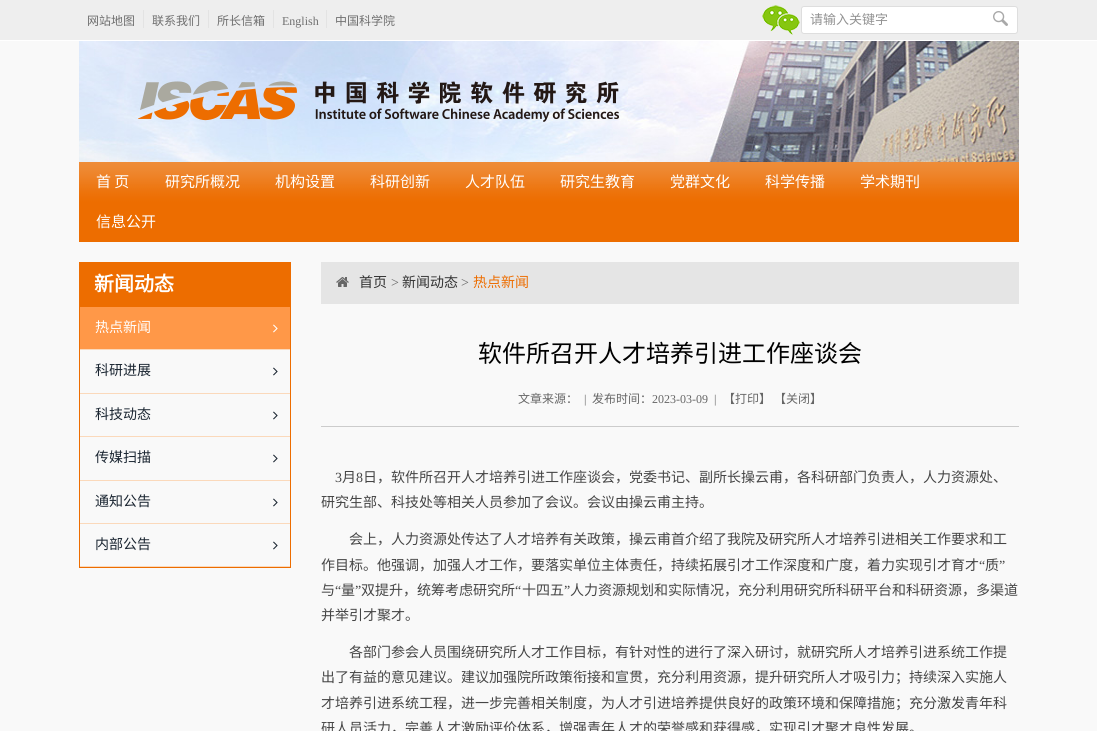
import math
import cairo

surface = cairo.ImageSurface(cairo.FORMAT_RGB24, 1097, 731)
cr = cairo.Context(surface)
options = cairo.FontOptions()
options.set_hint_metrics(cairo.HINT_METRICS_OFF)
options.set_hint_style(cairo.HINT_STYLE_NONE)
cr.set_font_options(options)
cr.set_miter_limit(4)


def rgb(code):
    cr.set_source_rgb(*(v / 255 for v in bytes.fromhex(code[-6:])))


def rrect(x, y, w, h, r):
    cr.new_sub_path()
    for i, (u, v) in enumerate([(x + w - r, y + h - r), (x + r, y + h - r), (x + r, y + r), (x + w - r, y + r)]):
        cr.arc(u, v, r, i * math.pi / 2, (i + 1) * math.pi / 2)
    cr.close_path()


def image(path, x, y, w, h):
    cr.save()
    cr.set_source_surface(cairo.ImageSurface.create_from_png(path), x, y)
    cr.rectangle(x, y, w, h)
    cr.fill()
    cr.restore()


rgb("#f9f9f9")
cr.paint()
for x, y, w, h, color in [
    (0, 0, 1097, 40, "#eeeeee"),
    (0, 40, 1097, 1, "#ffffff"),
    (143, 10, 1, 18, "#e3e3e3"),
    (208, 10, 1, 18, "#e3e3e3"),
    (273, 10, 1, 18, "#e3e3e3"),
    (326, 10, 1, 18, "#e3e3e3"),
]:
    rgb(color)
    cr.rectangle(x, y, w, h)
    cr.fill()
image("img/1.png", 762, 5, 38, 30)
rgb("#ffffff")
rrect(801.5, 6.5, 216, 27, 2.5)
cr.fill_preserve()
rgb("#dedede")
cr.set_line_width(1)
cr.stroke()
image("img/2.png", 993, 11, 15, 15)
image("img/3.png", 79, 41, 940, 121)
image("img/4.png", 138, 81, 481, 41)
image("img/5.png", 79, 162, 940, 80)
rgb("#ed6d00")
cr.rectangle(79, 262, 212, 44)
cr.fill()
cr.rectangle(79.5, 306.5, 211, 261)
cr.stroke()
rgb("#ff9848")
cr.rectangle(80, 307, 210, 42)
cr.fill()
rgb("#fbd9bb")
cr.rectangle(80, 349, 210, 1)
cr.fill()
image("img/6.png", 273, 324, 5, 9)
cr.rectangle(80, 393, 210, 1)
cr.fill()
image("img/7.png", 273, 367, 5, 9)
cr.rectangle(80, 436, 210, 1)
cr.fill()
image("img/7.png", 273, 411, 5, 9)
cr.rectangle(80, 480, 210, 1)
cr.fill()
image("img/7.png", 273, 454, 5, 9)
cr.rectangle(80, 523, 210, 1)
cr.fill()
image("img/7.png", 273, 498, 5, 9)
cr.rectangle(80, 566, 210, 1)
cr.fill()
image("img/7.png", 273, 541, 5, 9)
rgb("#e5e5e5")
cr.rectangle(321, 262, 698, 42)
cr.fill()
image("img/8.png", 336, 277, 13, 10)
rgb("#cccccc")
cr.rectangle(321, 426, 698, 1)
cr.fill()
cr.select_font_face("Noto Sans CJK SC")
cr.set_font_size(12)
rgb("#6f6f6f")
for x, y, s in [
    (87, 25, "网站地图"),
    (152, 25, "联系我们"),
    (217, 25, "所长信箱"),
]:
    cr.move_to(x, y)
    cr.show_text(s)
cr.select_font_face("Liberation Serif")
cr.move_to(282, 25)
cr.show_text("English")
cr.select_font_face("Noto Sans CJK SC")
cr.move_to(335, 25)
cr.show_text("中国科学院")
cr.set_font_size(13)
rgb("#929292")
cr.move_to(810, 24)
cr.show_text("请输入关键字")
cr.set_font_size(15)
rgb("#ffffff")
for x, y, s in [
    (96, 187, "首 页"),
    (165, 187, "研究所概况"),
    (275, 187, "机构设置"),
    (370, 187, "科研创新"),
    (465, 187, "人才队伍"),
    (560, 187, "研究生教育"),
    (670, 187, "党群文化"),
    (765, 187, "科学传播"),
    (860, 187, "学术期刊"),
    (96, 227, "信息公开"),
]:
    cr.move_to(x, y)
    cr.show_text(s)
cr.select_font_face("Noto Sans CJK SC", cairo.FONT_SLANT_NORMAL, cairo.FONT_WEIGHT_BOLD)
cr.set_font_size(20)
cr.move_to(94, 291)
cr.show_text("新闻动态")
cr.select_font_face("Noto Sans CJK SC")
cr.set_font_size(14)
cr.move_to(95, 332)
cr.show_text("热点新闻")
rgb("#1a2531")
for x, y, s in [
    (95, 375, "科研进展"),
    (95, 419, "科技动态"),
    (95, 462, "传媒扫描"),
    (95, 506, "通知公告"),
    (95, 549, "内部公告"),
]:
    cr.move_to(x, y)
    cr.show_text(s)
rgb("#333333")
cr.move_to(359, 287)
cr.show_text("首页")
cr.select_font_face("Liberation Serif")
rgb("#666666")
cr.move_to(391, 287)
cr.show_text(">")
cr.select_font_face("Noto Sans CJK SC")
rgb("#333333")
cr.move_to(402, 287)
cr.show_text("新闻动态")
cr.select_font_face("Liberation Serif")
rgb("#666666")
cr.move_to(461, 287)
cr.show_text(">")
cr.select_font_face("Noto Sans CJK SC")
rgb("#ed6d00")
cr.move_to(473, 287)
cr.show_text("热点新闻")
cr.set_font_size(24)
rgb("#000000")
cr.move_to(478, 362)
cr.show_text("软件所召开人才培养引进工作座谈会")
cr.set_font_size(12)
rgb("#666666")
cr.move_to(518, 403)
cr.show_text("文章来源：")
cr.select_font_face("Liberation Serif")
cr.move_to(584, 403)
cr.show_text("|")
cr.select_font_face("Noto Sans CJK SC")
cr.move_to(592, 403)
cr.show_text("发布时间：")
cr.select_font_face("Liberation Serif")
cr.move_to(652, 403)
cr.show_text("2023-03-09  |")
cr.select_font_face("Noto Sans CJK SC")
cr.move_to(723, 403)
cr.show_text("【打印】")
cr.move_to(774, 403)
cr.show_text("【关闭】")
cr.select_font_face("Liberation Serif")
cr.set_font_size(14)
rgb("#454545")
cr.move_to(335, 482)
cr.show_text("3")
cr.select_font_face("Noto Sans CJK SC")
cr.move_to(342, 482)
cr.show_text("月")
cr.select_font_face("Liberation Serif")
cr.move_to(356, 482)
cr.show_text("8")
cr.select_font_face("Noto Sans CJK SC")
for x, y, s in [
    (363, 482, "日，软件所召开人才培养引进工作座谈会，党委书记、副所长操云甫，各科研部门负责人，人力资源处、"),
    (321, 507, "研究生部、科技处等相关人员参加了会议。会议由操云甫主持。"),
    (349, 544, "会上，人力资源处传达了人才培养有关政策，操云甫首介绍了我院及研究所人才培养引进相关工作要求和工"),
    (321, 570, "作目标。他强调，加强人才工作，要落实单位主体责任，持续拓展引才工作深度和广度，着力实现引才育才"),
]:
    cr.move_to(x, y)
    cr.show_text(s)
cr.select_font_face("Liberation Serif")
cr.move_to(979, 570)
cr.show_text("“")
cr.select_font_face("Noto Sans CJK SC")
cr.move_to(985, 570)
cr.show_text("质")
cr.select_font_face("Liberation Serif")
cr.move_to(999, 570)
cr.show_text("”")
cr.select_font_face("Noto Sans CJK SC")
cr.move_to(321, 595)
cr.show_text("与")
cr.select_font_face("Liberation Serif")
cr.move_to(335, 595)
cr.show_text("“")
cr.select_font_face("Noto Sans CJK SC")
cr.move_to(341, 595)
cr.show_text("量")
cr.select_font_face("Liberation Serif")
cr.move_to(355, 595)
cr.show_text("”")
cr.select_font_face("Noto Sans CJK SC")
cr.move_to(361, 595)
cr.show_text("双提升，统筹考虑研究所")
cr.select_font_face("Liberation Serif")
cr.move_to(515, 595)
cr.show_text("“")
cr.select_font_face("Noto Sans CJK SC")
cr.move_to(522, 595)
cr.show_text("十四五")
cr.select_font_face("Liberation Serif")
cr.move_to(564, 595)
cr.show_text("”")
cr.select_font_face("Noto Sans CJK SC")
for x, y, s in [
    (570, 595, "人力资源规划和实际情况，充分利用研究所科研平台和科研资源，多渠道"),
    (321, 620, "并举引才聚才。"),
    (349, 657, "各部门参会人员围绕研究所人才工作目标，有针对性的进行了深入研讨，就研究所人才培养引进系统工作提"),
    (321, 682, "出了有益的意见建议。建议加强院所政策衔接和宣贯，充分利用资源，提升研究所人才吸引力；持续深入实施人"),
    (321, 708, "才培养引进系统工程，进一步完善相关制度，为人才引进培养提供良好的政策环境和保障措施；充分激发青年科"),
    (321, 733, "研人员活力，完善人才激励评价体系，增强青年人才的荣誉感和获得感，实现引才聚才良性发展。"),
]:
    cr.move_to(x, y)
    cr.show_text(s)
surface.write_to_png("page.png")
